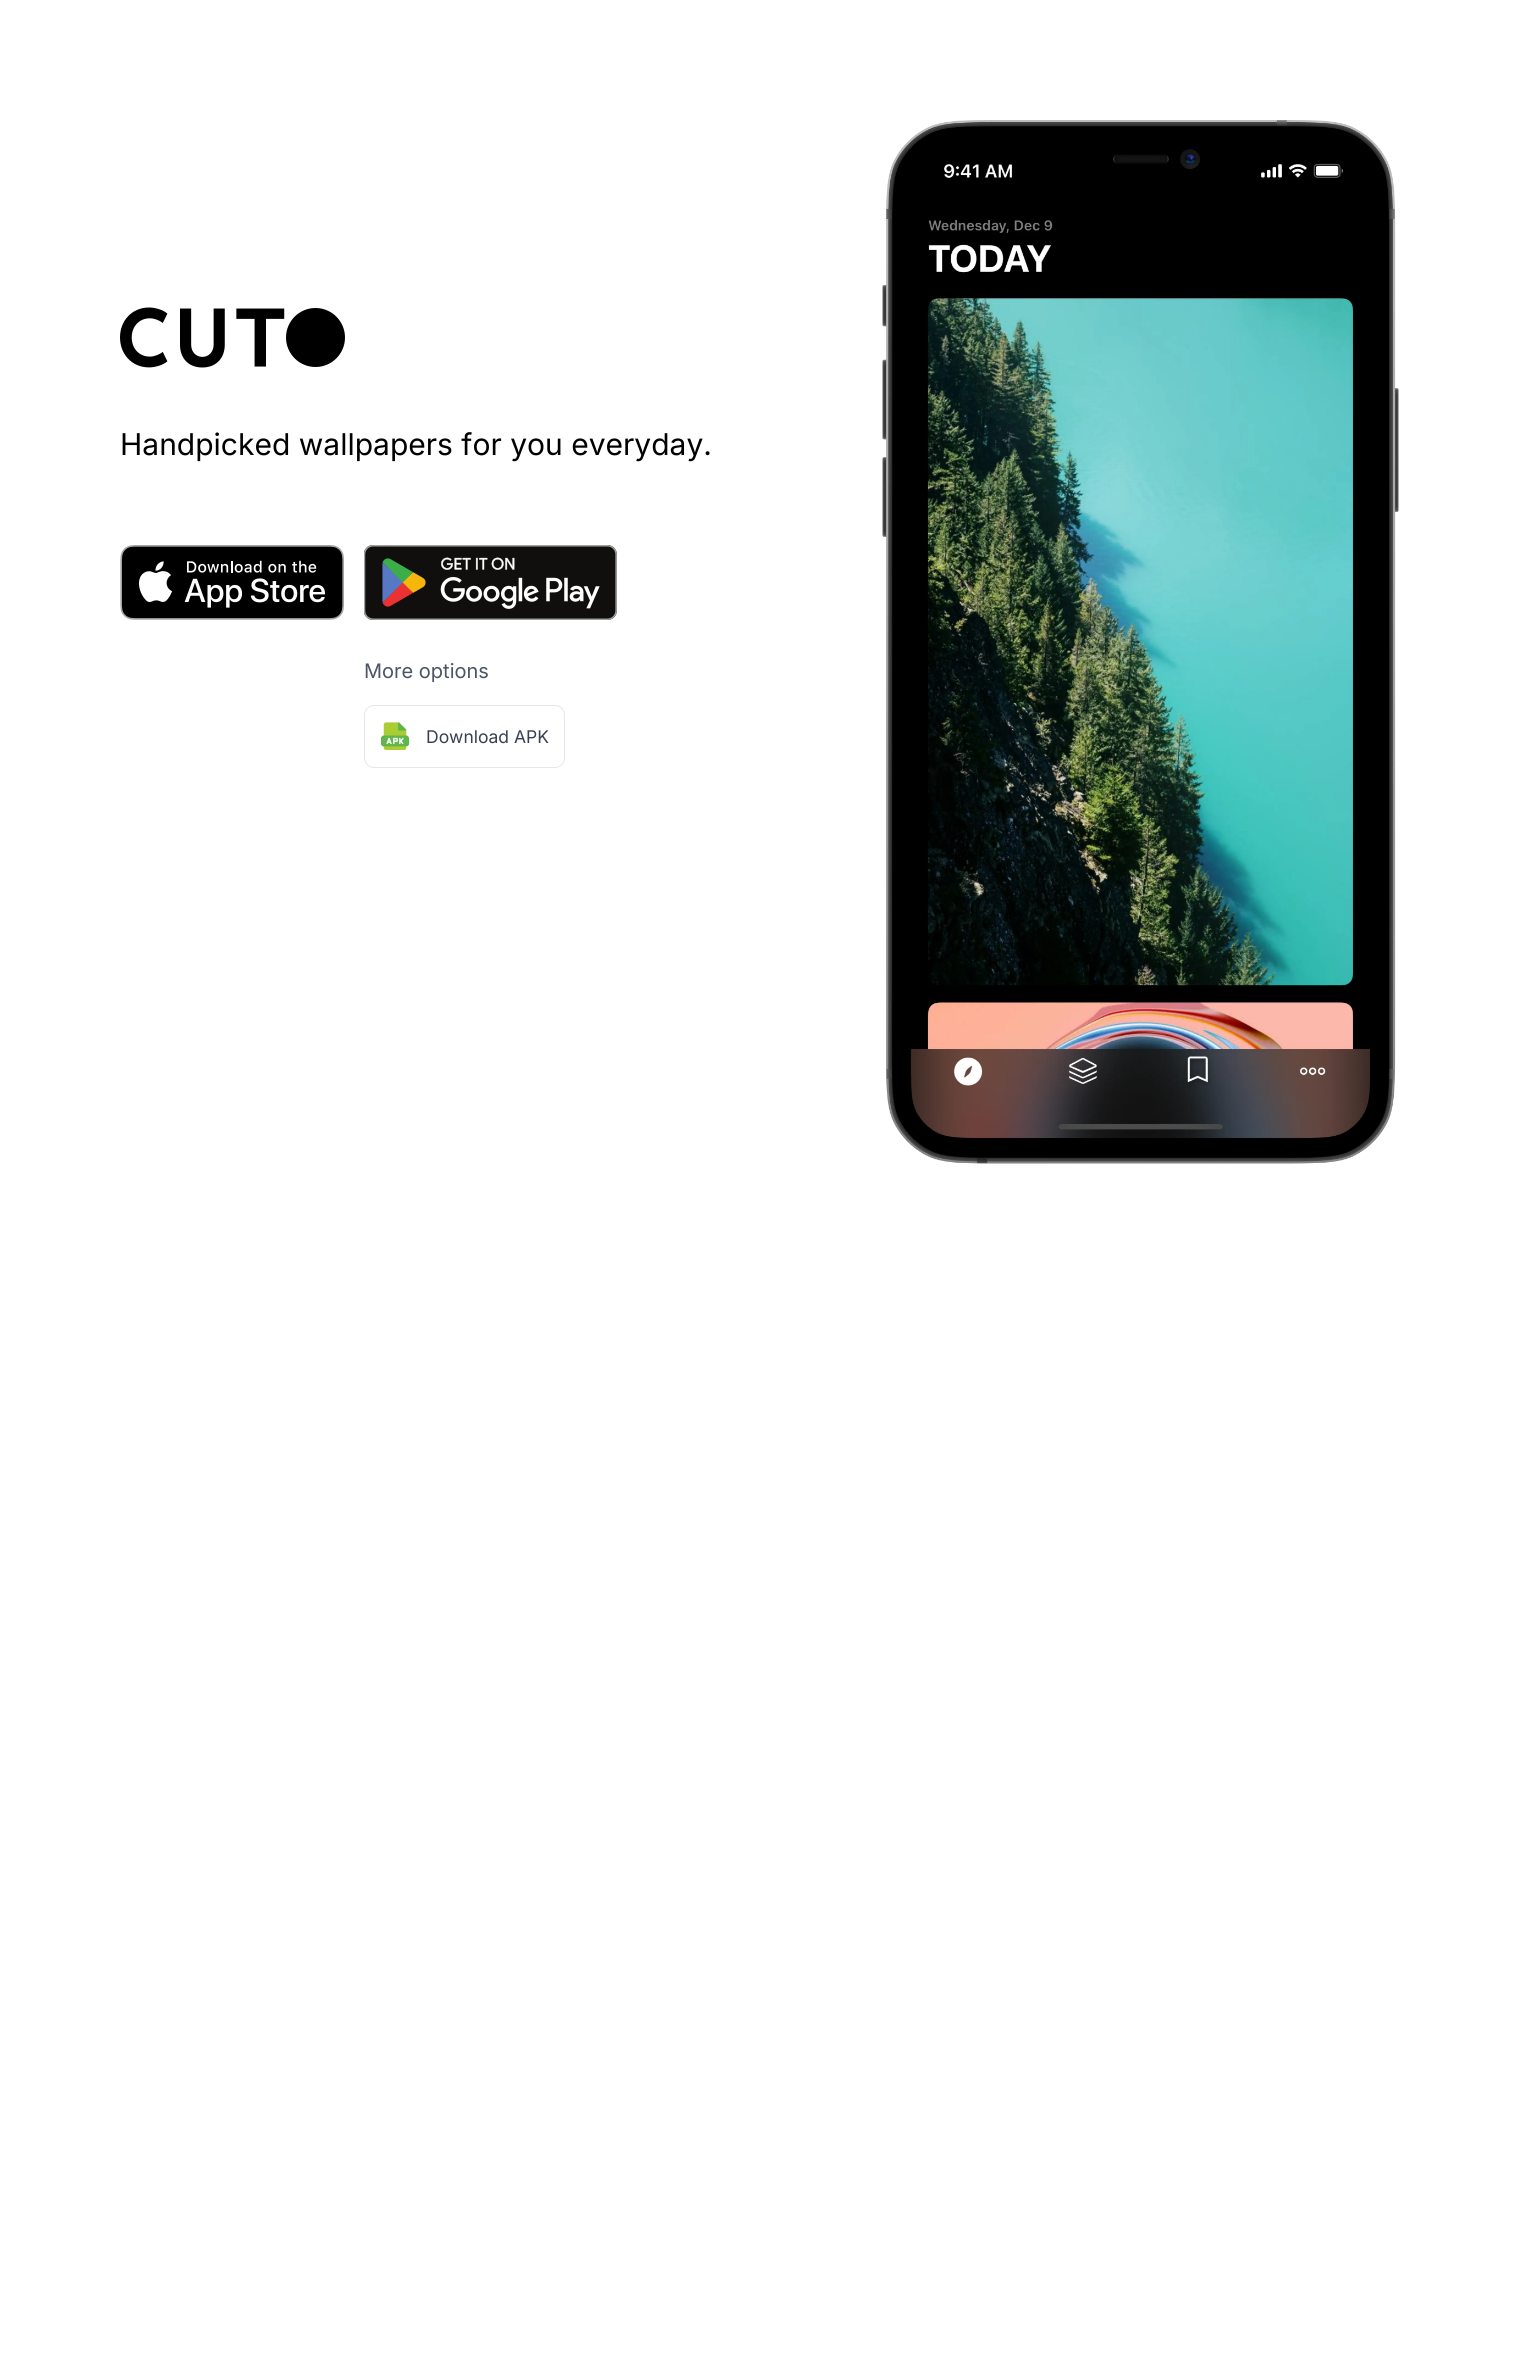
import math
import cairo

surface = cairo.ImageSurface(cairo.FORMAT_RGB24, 1529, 2357)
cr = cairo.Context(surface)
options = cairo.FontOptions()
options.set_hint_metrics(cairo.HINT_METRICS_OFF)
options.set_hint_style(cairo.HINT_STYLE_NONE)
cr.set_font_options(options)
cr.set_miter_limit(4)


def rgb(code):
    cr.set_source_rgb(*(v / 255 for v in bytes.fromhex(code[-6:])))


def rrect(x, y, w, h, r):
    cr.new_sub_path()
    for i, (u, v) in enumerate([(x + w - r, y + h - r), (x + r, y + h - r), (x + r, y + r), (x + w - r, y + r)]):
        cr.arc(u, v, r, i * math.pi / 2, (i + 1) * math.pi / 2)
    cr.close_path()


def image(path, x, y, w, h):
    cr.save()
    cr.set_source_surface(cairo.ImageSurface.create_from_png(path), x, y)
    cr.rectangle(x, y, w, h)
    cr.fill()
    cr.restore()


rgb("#ffffff")
cr.paint()
image("img/1.png", 120, 307, 225, 61)
image("img/2.png", 120, 545, 224, 75)
image("img/3.png", 364, 545, 253, 75)
rrect(364.5, 705.5, 200, 62, 9.5)
rgb("#e5e7eb")
cr.set_line_width(1)
cr.stroke()
image("img/4.png", 381, 722, 28, 28)
image("img/5.png", 882, 120, 517, 1044)
cr.select_font_face("Inter")
cr.set_font_size(30)
rgb("#000000")
cr.move_to(120, 455)
cr.show_text("Handpicked wallpapers for you everyday.")
cr.set_font_size(20)
rgb("#4b5563")
cr.move_to(364, 678)
cr.show_text("More options")
cr.set_font_size(17.5)
rgb("#374151")
cr.move_to(426, 743)
cr.show_text("Download APK")
surface.write_to_png("page.png")
